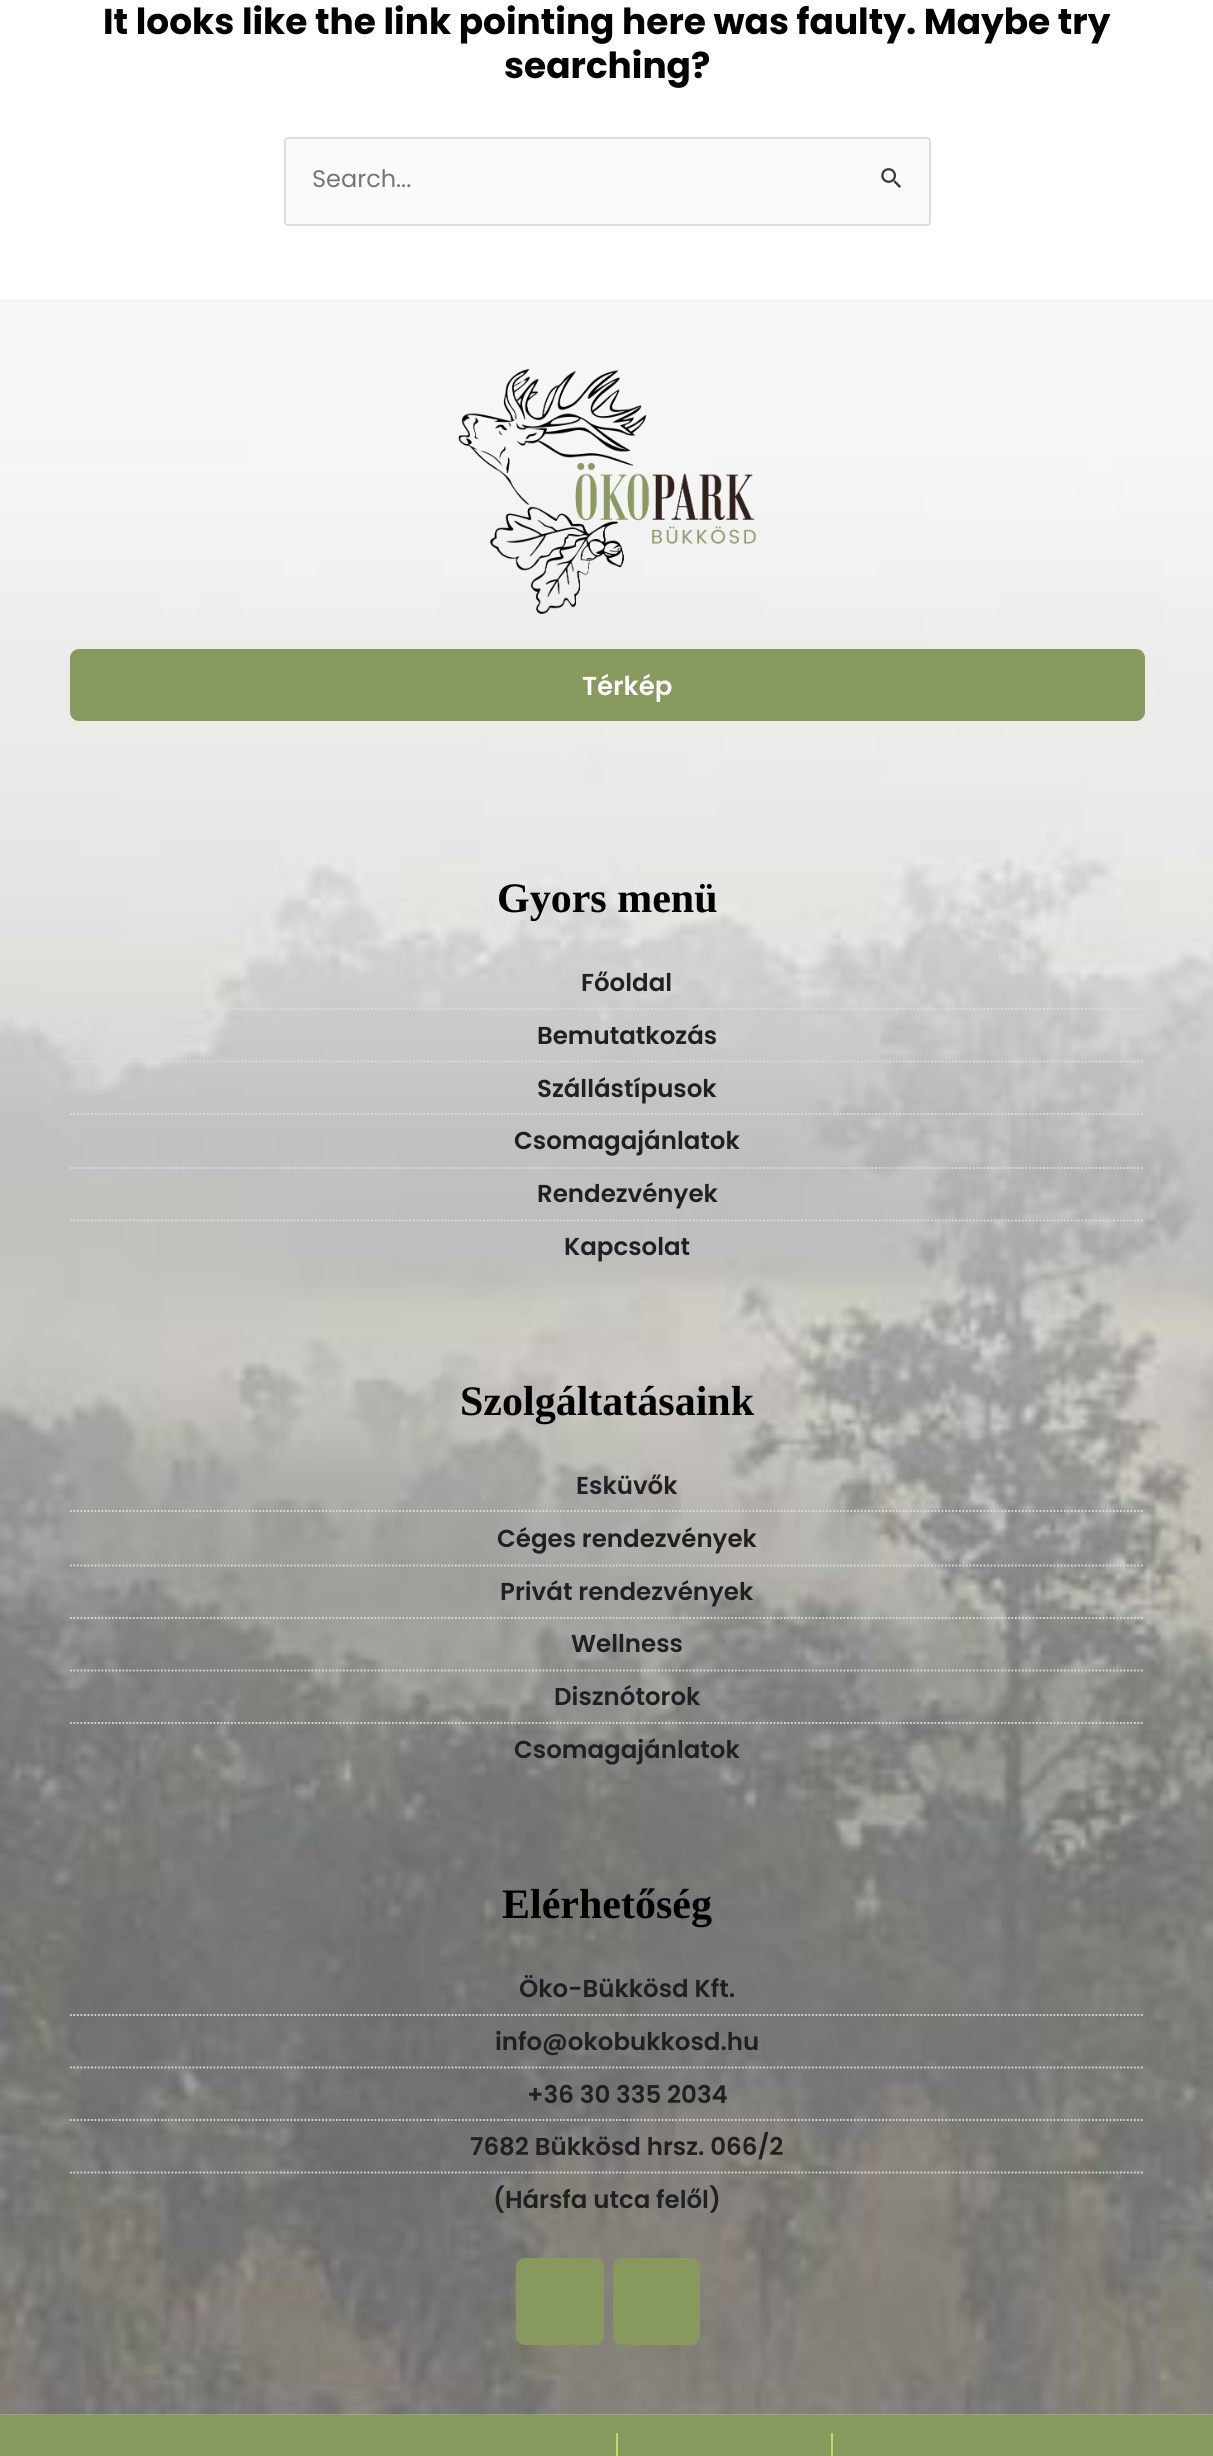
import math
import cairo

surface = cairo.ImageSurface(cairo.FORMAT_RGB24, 1213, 2456)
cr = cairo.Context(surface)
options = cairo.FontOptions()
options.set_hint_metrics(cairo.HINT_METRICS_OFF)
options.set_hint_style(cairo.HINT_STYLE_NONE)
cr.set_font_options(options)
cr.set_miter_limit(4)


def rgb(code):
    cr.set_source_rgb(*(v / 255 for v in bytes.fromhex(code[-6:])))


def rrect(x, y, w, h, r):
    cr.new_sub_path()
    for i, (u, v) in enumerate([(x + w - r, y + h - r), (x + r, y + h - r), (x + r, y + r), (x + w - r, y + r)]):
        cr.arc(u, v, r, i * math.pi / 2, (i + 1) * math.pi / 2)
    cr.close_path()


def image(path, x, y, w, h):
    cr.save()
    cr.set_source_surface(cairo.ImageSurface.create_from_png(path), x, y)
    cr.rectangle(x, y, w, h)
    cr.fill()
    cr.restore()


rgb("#ffffff")
cr.paint()
rgb("#fafafa")
rrect(285, 138, 645, 87, 3)
cr.fill_preserve()
rgb("#dddddd")
cr.stroke()
image("img/1.png", 881, 168, 20, 20)
image("img/2.png", 0, 299, 1213, 2116)
image("img/3.png", 458, 369, 298, 245)
rgb("#88995e")
rrect(71, 650, 1073, 70, 8)
cr.fill_preserve()
cr.stroke()
cr.new_path()
cr.move_to(70, 1009)
cr.line_to(1144.5, 1009)
rgb("#dddddd")
cr.set_line_width(1.8)
cr.set_dash([1.75, 1.75])
cr.stroke()
cr.new_path()
cr.move_to(70, 1061.5)
cr.line_to(1144.5, 1061.5)
cr.stroke()
cr.new_path()
cr.move_to(70, 1114)
cr.line_to(1144.5, 1114)
cr.stroke()
cr.new_path()
cr.move_to(70, 1168)
cr.line_to(1144.5, 1168)
cr.stroke()
cr.new_path()
cr.move_to(70, 1220.5)
cr.line_to(1144.5, 1220.5)
cr.stroke()
cr.new_path()
cr.move_to(70, 1511)
cr.line_to(1144.5, 1511)
cr.stroke()
cr.new_path()
cr.move_to(70, 1565.5)
cr.line_to(1144.5, 1565.5)
cr.stroke()
cr.new_path()
cr.move_to(70, 1618)
cr.line_to(1144.5, 1618)
cr.stroke()
cr.new_path()
cr.move_to(70, 1670.5)
cr.line_to(1144.5, 1670.5)
cr.stroke()
cr.new_path()
cr.move_to(70, 1723)
cr.line_to(1144.5, 1723)
cr.stroke()
cr.new_path()
cr.move_to(70, 2015)
cr.line_to(1144.5, 2015)
cr.stroke()
cr.new_path()
cr.move_to(70, 2067.5)
cr.line_to(1144.5, 2067.5)
cr.stroke()
cr.new_path()
cr.move_to(70, 2120)
cr.line_to(1144.5, 2120)
cr.stroke()
cr.new_path()
cr.move_to(70, 2172.5)
cr.line_to(1144.5, 2172.5)
cr.stroke()
rgb("#88995e")
rrect(516, 2258, 88, 87, 9)
cr.fill()
rrect(613, 2258, 87, 87, 9)
cr.fill()
for x, y, w, h, color in [
    (0, 2415, 1213, 41, "#88995e"),
    (616, 2433, 2, 23, "#c6d56e"),
    (831, 2433, 2, 23, "#c6d56e"),
]:
    rgb(color)
    cr.rectangle(x, y, w, h)
    cr.fill()
cr.select_font_face("Poppins", cairo.FONT_SLANT_NORMAL, cairo.FONT_WEIGHT_BOLD)
cr.set_font_size(35.9)
rgb("#000000")
cr.move_to(103, 34)
cr.show_text("It looks like the link pointing here was faulty. Maybe try")
cr.move_to(504, 78)
cr.show_text("searching?")
cr.select_font_face("Poppins")
cr.set_font_size(24)
rgb("#757575")
cr.move_to(312, 187)
cr.show_text("Search...")
cr.select_font_face("Poppins SemiBold")
cr.set_font_size(26)
rgb("#ffffff")
cr.move_to(582, 695)
cr.show_text("Térkép")
cr.select_font_face("Liberation Serif", cairo.FONT_SLANT_NORMAL, cairo.FONT_WEIGHT_BOLD)
cr.set_font_size(42)
rgb("#000000")
cr.move_to(497, 912)
cr.show_text("Gyors menü")
cr.select_font_face("Poppins SemiBold")
cr.set_font_size(24.5)
rgb("#202020")
for x, y, s in [
    (581, 991, "Főoldal"),
    (537, 1044, "Bemutatkozás"),
    (537, 1097, "Szállástípusok"),
    (514, 1149, "Csomagajánlatok"),
    (537, 1202, "Rendezvények"),
    (564, 1255, "Kapcsolat"),
]:
    cr.move_to(x, y)
    cr.show_text(s)
cr.select_font_face("Liberation Serif", cairo.FONT_SLANT_NORMAL, cairo.FONT_WEIGHT_BOLD)
cr.set_font_size(42)
rgb("#000000")
cr.move_to(460, 1415)
cr.show_text("Szolgáltatásaink")
cr.select_font_face("Poppins SemiBold")
cr.set_font_size(24.5)
rgb("#202020")
for x, y, s in [
    (576, 1494, "Esküvők"),
    (497, 1547, "Céges rendezvények"),
    (500, 1600, "Privát rendezvények"),
    (571, 1652, "Wellness"),
    (554, 1705, "Disznótorok"),
    (514, 1758, "Csomagajánlatok"),
]:
    cr.move_to(x, y)
    cr.show_text(s)
cr.select_font_face("Liberation Serif", cairo.FONT_SLANT_NORMAL, cairo.FONT_WEIGHT_BOLD)
cr.set_font_size(42)
rgb("#000000")
cr.move_to(502, 1918)
cr.show_text("Elérhetőség")
cr.select_font_face("Poppins SemiBold")
cr.set_font_size(24.5)
rgb("#202020")
for x, y, s in [
    (519, 1997, "Öko-Bükkösd Kft."),
    (495, 2050, "info@okobukkosd.hu"),
    (527, 2103, "+36 30 335 2034"),
    (470, 2155, "7682 Bükkösd hrsz. 066/2"),
    (493, 2208, "(Hársfa utca felől)"),
]:
    cr.move_to(x, y)
    cr.show_text(s)
surface.write_to_png("page.png")
